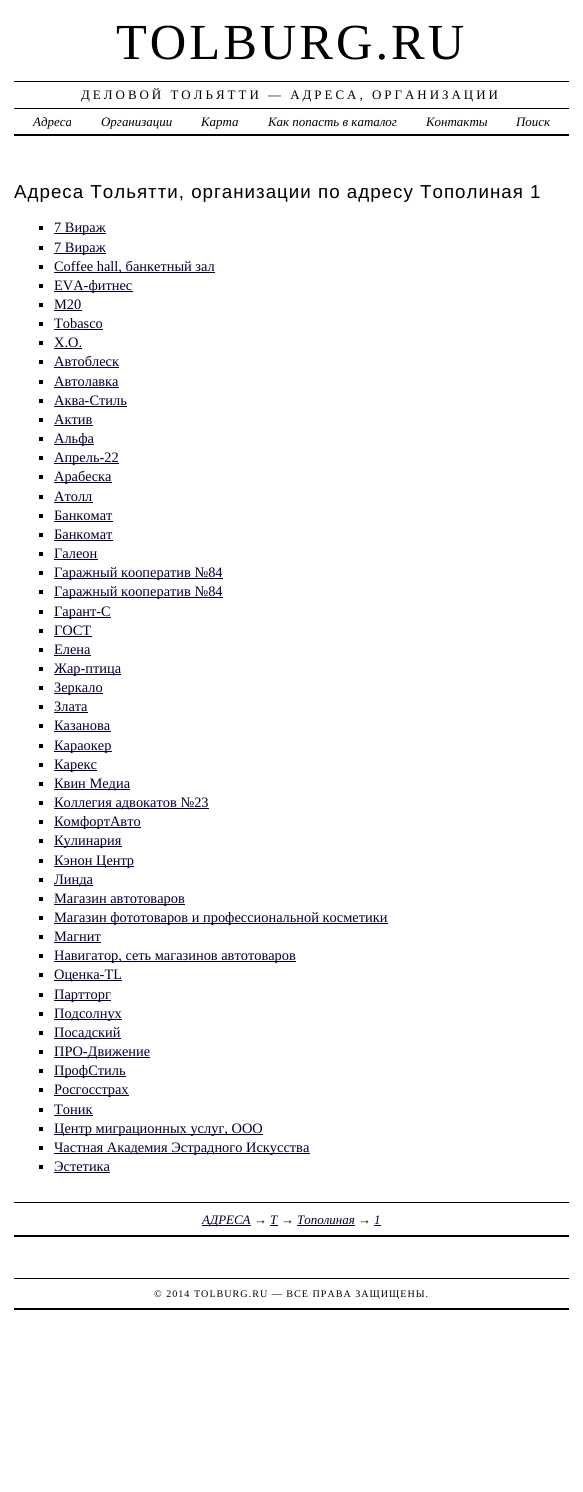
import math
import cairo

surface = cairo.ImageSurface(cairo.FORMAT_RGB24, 583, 1492)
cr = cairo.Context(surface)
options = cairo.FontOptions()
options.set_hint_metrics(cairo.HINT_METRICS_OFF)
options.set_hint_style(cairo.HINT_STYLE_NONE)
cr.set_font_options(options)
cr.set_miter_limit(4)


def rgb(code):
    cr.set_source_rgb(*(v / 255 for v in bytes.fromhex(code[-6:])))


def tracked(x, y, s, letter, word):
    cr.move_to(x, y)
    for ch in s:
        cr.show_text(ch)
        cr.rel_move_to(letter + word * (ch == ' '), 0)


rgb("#ffffff")
cr.paint()
for x, y, w, h, color in [
    (14, 81, 555, 1, "#000000"),
    (14, 108, 555, 1, "#000000"),
    (14, 134, 555, 2, "#000000"),
    (39, 226, 4, 4, "#000000"),
    (54, 233, 52, 1, "#000033"),
    (39, 246, 4, 4, "#000000"),
    (54, 253, 52, 1, "#000033"),
    (39, 265, 4, 4, "#000000"),
    (54, 272, 161, 1, "#000033"),
    (39, 284, 4, 4, "#000000"),
    (54, 291, 79, 1, "#000033"),
    (39, 303, 4, 4, "#000000"),
    (54, 310, 28, 1, "#000033"),
    (39, 322, 4, 4, "#000000"),
    (54, 329, 49, 1, "#000033"),
    (39, 341, 4, 4, "#000000"),
    (54, 348, 28, 1, "#000033"),
    (39, 360, 4, 4, "#000000"),
    (54, 367, 65, 1, "#000033"),
    (39, 380, 4, 4, "#000000"),
    (54, 387, 65, 1, "#000033"),
    (39, 399, 4, 4, "#000000"),
    (54, 406, 73, 1, "#000033"),
    (39, 418, 4, 4, "#000000"),
    (54, 425, 39, 1, "#000033"),
    (39, 437, 4, 4, "#000000"),
    (54, 444, 40, 1, "#000033"),
    (39, 456, 4, 4, "#000000"),
    (54, 463, 65, 1, "#000033"),
    (39, 475, 4, 4, "#000000"),
    (54, 482, 58, 1, "#000033"),
    (39, 495, 4, 4, "#000000"),
    (54, 502, 39, 1, "#000033"),
    (39, 514, 4, 4, "#000000"),
    (54, 521, 59, 1, "#000033"),
    (39, 533, 4, 4, "#000000"),
    (54, 540, 59, 1, "#000033"),
    (39, 552, 4, 4, "#000000"),
    (54, 559, 44, 1, "#000033"),
    (39, 571, 4, 4, "#000000"),
    (54, 578, 169, 1, "#000033"),
    (39, 590, 4, 4, "#000000"),
    (54, 597, 169, 1, "#000033"),
    (39, 610, 4, 4, "#000000"),
    (54, 617, 57, 1, "#000033"),
    (39, 629, 4, 4, "#000000"),
    (54, 636, 38, 1, "#000033"),
    (39, 648, 4, 4, "#000000"),
    (54, 655, 37, 1, "#000033"),
    (39, 667, 4, 4, "#000000"),
    (54, 674, 67, 1, "#000033"),
    (39, 686, 4, 4, "#000000"),
    (54, 693, 49, 1, "#000033"),
    (39, 705, 4, 4, "#000000"),
    (54, 712, 34, 1, "#000033"),
    (39, 724, 4, 4, "#000000"),
    (54, 731, 57, 1, "#000033"),
    (39, 744, 4, 4, "#000000"),
    (54, 751, 58, 1, "#000033"),
    (39, 763, 4, 4, "#000000"),
    (54, 770, 43, 1, "#000033"),
    (39, 782, 4, 4, "#000000"),
    (54, 789, 76, 1, "#000033"),
    (39, 801, 4, 4, "#000000"),
    (54, 808, 155, 1, "#000033"),
    (39, 820, 4, 4, "#000000"),
    (54, 827, 87, 1, "#000033"),
    (39, 839, 4, 4, "#000000"),
    (54, 846, 68, 1, "#000033"),
    (39, 859, 4, 4, "#000000"),
    (54, 866, 80, 1, "#000033"),
    (39, 878, 4, 4, "#000000"),
    (54, 885, 39, 1, "#000033"),
    (39, 897, 4, 4, "#000000"),
    (54, 904, 131, 1, "#000033"),
    (39, 916, 4, 4, "#000000"),
    (54, 923, 334, 1, "#000033"),
    (39, 935, 4, 4, "#000000"),
    (54, 942, 47, 1, "#000033"),
    (39, 954, 4, 4, "#000000"),
    (54, 961, 242, 1, "#000033"),
    (39, 973, 4, 4, "#000000"),
    (54, 980, 68, 1, "#000033"),
    (39, 993, 4, 4, "#000000"),
    (54, 1000, 57, 1, "#000033"),
    (39, 1012, 4, 4, "#000000"),
    (54, 1019, 68, 1, "#000033"),
    (39, 1031, 4, 4, "#000000"),
    (54, 1038, 67, 1, "#000033"),
    (39, 1050, 4, 4, "#000000"),
    (54, 1057, 96, 1, "#000033"),
    (39, 1069, 4, 4, "#000000"),
    (54, 1076, 72, 1, "#000033"),
    (39, 1088, 4, 4, "#000000"),
    (54, 1095, 75, 1, "#000033"),
    (39, 1108, 4, 4, "#000000"),
    (54, 1115, 39, 1, "#000033"),
    (39, 1127, 4, 4, "#000000"),
    (54, 1134, 209, 1, "#000033"),
    (39, 1146, 4, 4, "#000000"),
    (54, 1153, 256, 1, "#000033"),
    (39, 1165, 4, 4, "#000000"),
    (54, 1172, 56, 1, "#000033"),
    (14, 1202, 555, 1, "#000000"),
    (14, 1235, 555, 2, "#000000"),
    (202, 1225, 49, 1, "#000033"),
    (270, 1225, 8, 1, "#000033"),
    (297, 1225, 58, 1, "#000033"),
    (374, 1225, 7, 1, "#000033"),
    (14, 1278, 555, 1, "#000000"),
    (14, 1308, 555, 2, "#000000"),
]:
    rgb(color)
    cr.rectangle(x, y, w, h)
    cr.fill()
cr.select_font_face("Liberation Serif")
cr.set_font_size(50.5)
tracked(116, 59, "TOLBURG.RU", 3, 0)
cr.set_font_size(12.95)
tracked(81, 99, "ДЕЛОВОЙ ТОЛЬЯТТИ — АДРЕСА, ОРГАНИЗАЦИИ", 3, 0)
cr.select_font_face("Liberation Serif", cairo.FONT_SLANT_ITALIC)
for x, y, s in [
    (33, 126, "Адреса"),
    (101, 126, "Организации"),
    (201, 126, "Карта"),
    (268, 126, "Как попасть в каталог"),
    (426, 126, "Контакты"),
    (516, 126, "Поиск"),
]:
    cr.move_to(x, y)
    cr.show_text(s)
cr.select_font_face("Liberation Sans")
cr.set_font_size(18.75)
tracked(14, 198, "Адреса Тольятти, организации по адресу Тополиная 1", 1, 0)
cr.select_font_face("Liberation Serif")
cr.set_font_size(14.4)
rgb("#000033")
for x, y, s in [
    (54, 232, "7 Вираж"),
    (54, 252, "7 Вираж"),
    (54, 271, "Coffee hall, банкетный зал"),
    (54, 290, "EVA-фитнес"),
    (54, 309, "M20"),
    (54, 328, "Tobasco"),
    (54, 347, "X.O."),
    (54, 366, "Автоблеск"),
    (54, 386, "Автолавка"),
    (54, 405, "Аква-Стиль"),
    (54, 424, "Актив"),
    (54, 443, "Альфа"),
    (54, 462, "Апрель-22"),
    (54, 481, "Арабеска"),
    (54, 501, "Атолл"),
    (54, 520, "Банкомат"),
    (54, 539, "Банкомат"),
    (54, 558, "Галеон"),
    (54, 577, "Гаражный кооператив №84"),
    (54, 596, "Гаражный кооператив №84"),
    (54, 616, "Гарант-С"),
    (54, 635, "ГОСТ"),
    (54, 654, "Елена"),
    (54, 673, "Жар-птица"),
    (54, 692, "Зеркало"),
    (54, 711, "Злата"),
    (54, 730, "Казанова"),
    (54, 750, "Караокер"),
    (54, 769, "Карекс"),
    (54, 788, "Квин Медиа"),
    (54, 807, "Коллегия адвокатов №23"),
    (54, 826, "КомфортАвто"),
    (54, 845, "Кулинария"),
    (54, 865, "Кэнон Центр"),
    (54, 884, "Линда"),
    (54, 903, "Магазин автотоваров"),
    (54, 922, "Магазин фототоваров и профессиональной косметики"),
    (54, 941, "Магнит"),
    (54, 960, "Навигатор, сеть магазинов автотоваров"),
    (54, 979, "Оценка-TL"),
    (54, 999, "Партторг"),
    (54, 1018, "Подсолнух"),
    (54, 1037, "Посадский"),
    (54, 1056, "ПРО-Движение"),
    (54, 1075, "ПрофСтиль"),
    (54, 1094, "Росгосстрах"),
    (54, 1114, "Тоник"),
    (54, 1133, "Центр миграционных услуг, ООО"),
    (54, 1152, "Частная Академия Эстрадного Искусства"),
    (54, 1171, "Эстетика"),
]:
    cr.move_to(x, y)
    cr.show_text(s)
cr.select_font_face("Liberation Serif", cairo.FONT_SLANT_ITALIC)
cr.set_font_size(12.95)
cr.move_to(202, 1224)
cr.show_text("АДРЕСА")
rgb("#000000")
cr.move_to(254, 1224)
cr.show_text("→")
rgb("#000033")
cr.move_to(270, 1224)
cr.show_text("Т")
rgb("#000000")
cr.move_to(281, 1224)
cr.show_text("→")
rgb("#000033")
cr.move_to(297, 1224)
cr.show_text("Тополиная")
rgb("#000000")
cr.move_to(358, 1224)
cr.show_text("→")
rgb("#000033")
cr.move_to(374, 1224)
cr.show_text("1")
cr.select_font_face("Liberation Serif")
cr.set_font_size(10.1)
rgb("#000000")
tracked(154, 1297, "© 2014 TOLBURG.RU — ВСЕ ПРАВА ЗАЩИЩЕНЫ.", 1, 0)
surface.write_to_png("page.png")
